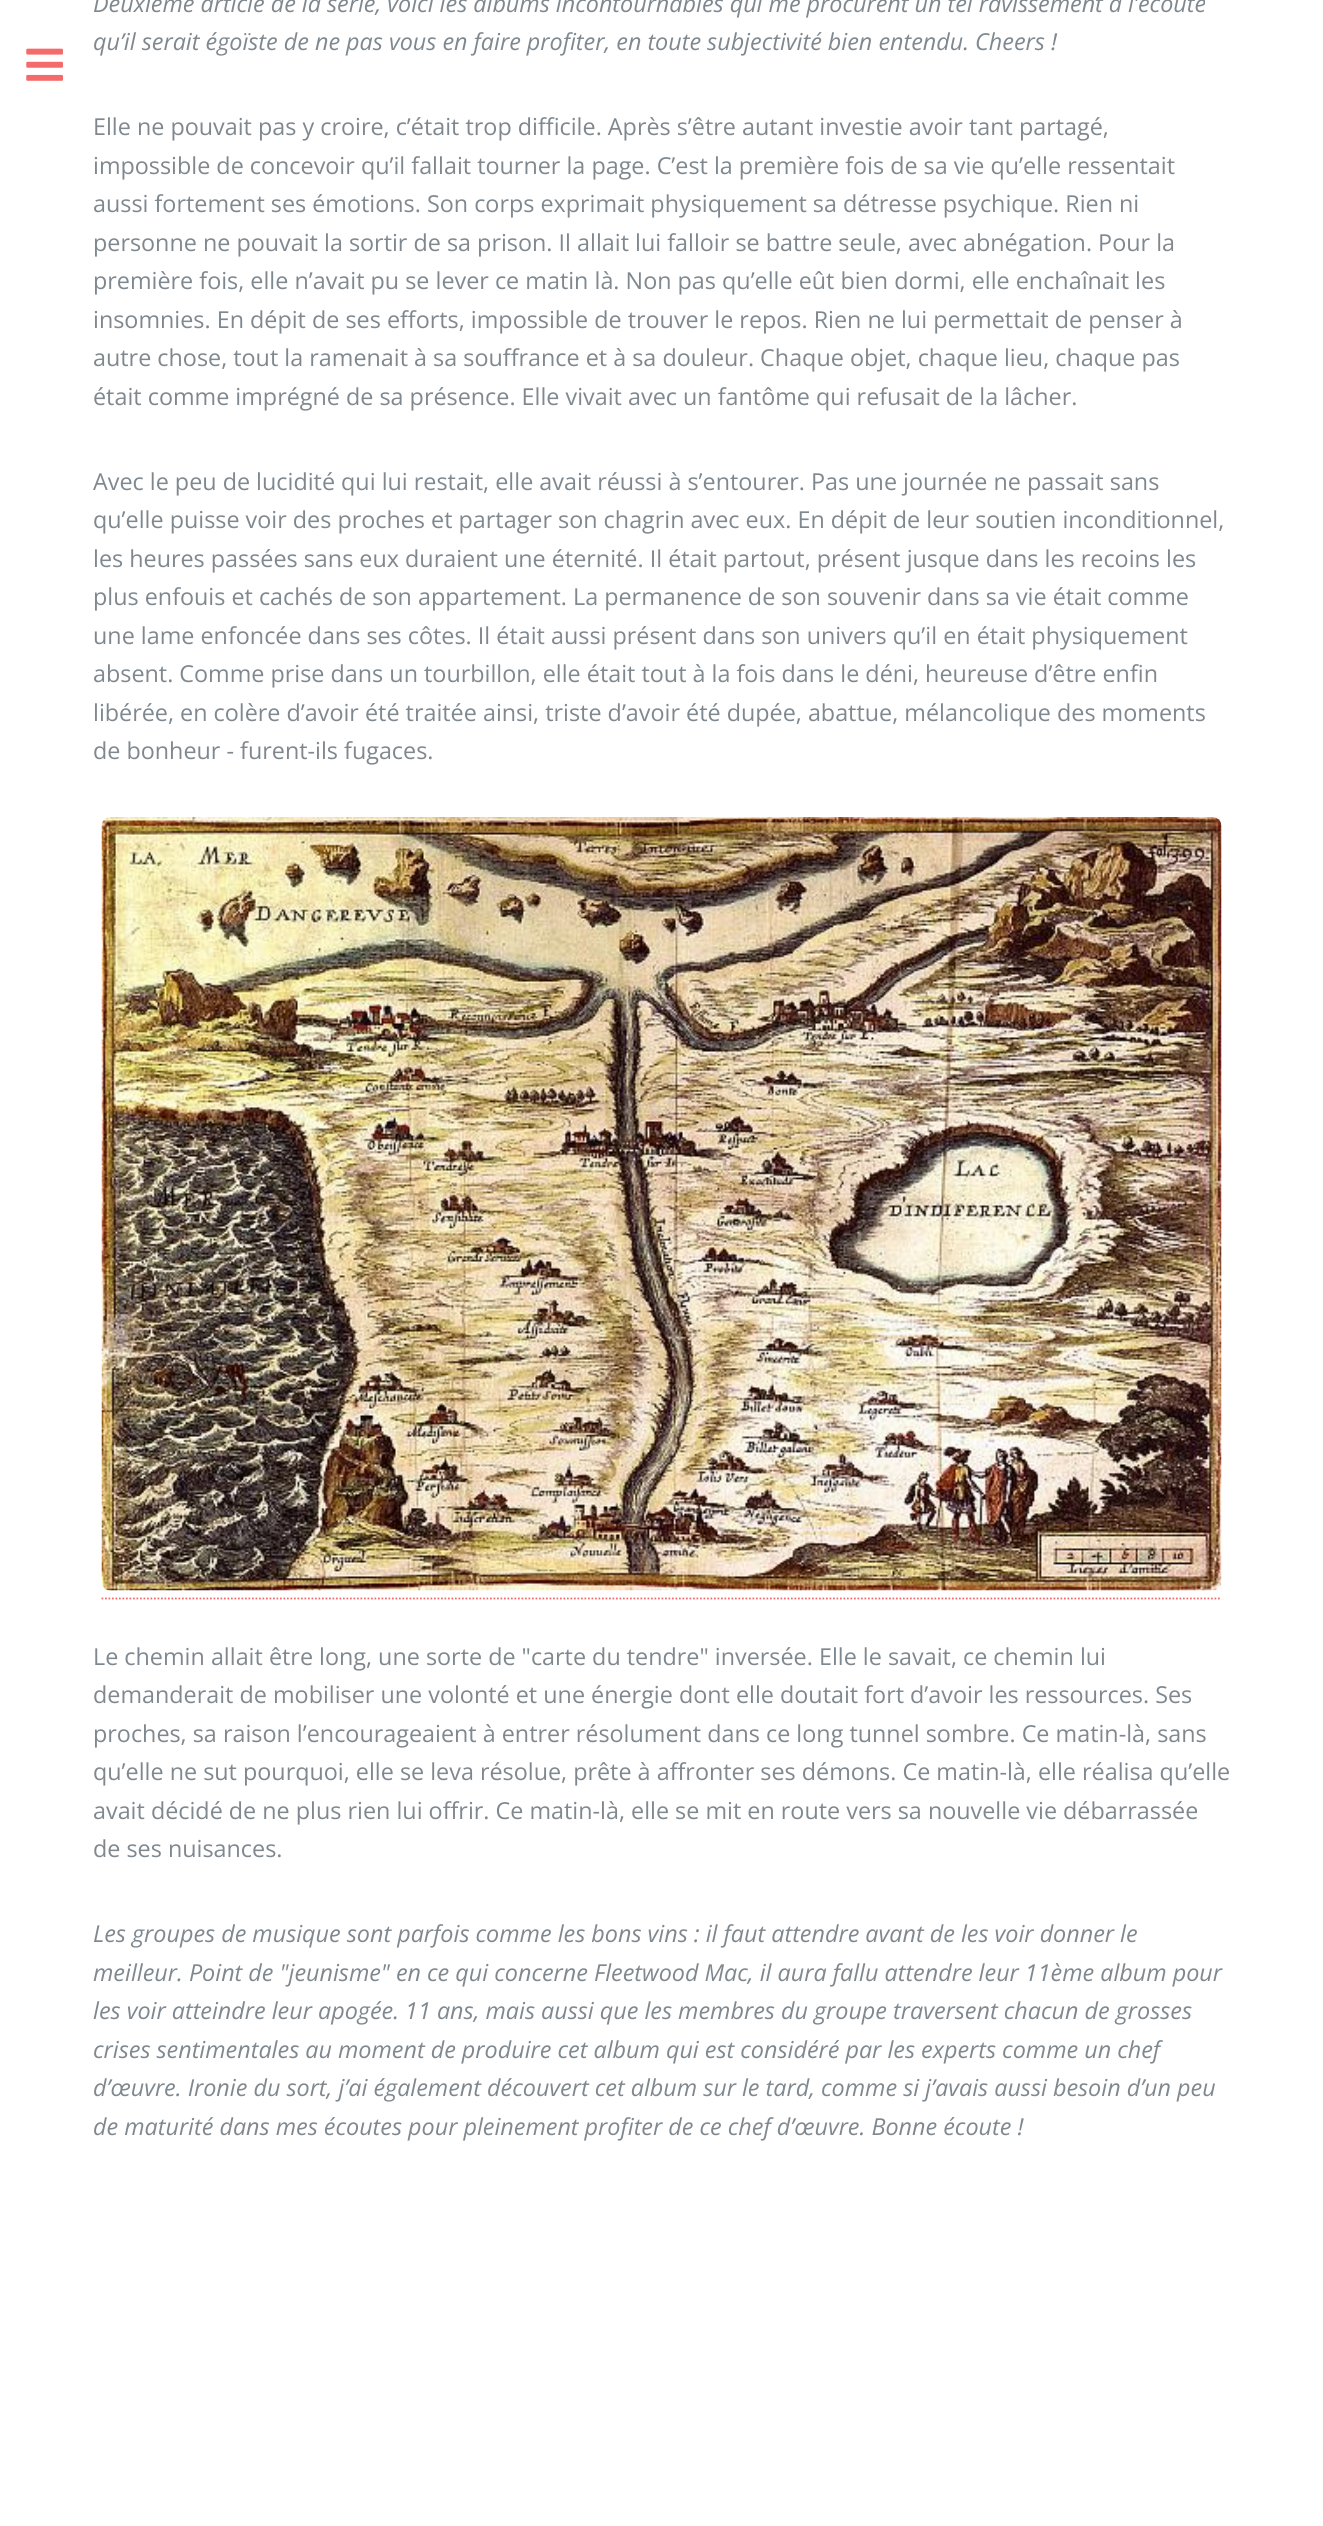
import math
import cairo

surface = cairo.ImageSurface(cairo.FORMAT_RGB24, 1323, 2526)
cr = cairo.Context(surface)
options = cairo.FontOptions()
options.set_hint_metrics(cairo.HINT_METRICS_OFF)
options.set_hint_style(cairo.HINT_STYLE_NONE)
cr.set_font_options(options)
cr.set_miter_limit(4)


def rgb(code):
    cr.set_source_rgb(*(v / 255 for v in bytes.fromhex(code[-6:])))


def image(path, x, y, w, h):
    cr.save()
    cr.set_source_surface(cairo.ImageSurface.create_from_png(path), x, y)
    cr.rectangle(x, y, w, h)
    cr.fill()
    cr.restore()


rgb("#ffffff")
cr.paint()
image("img/1.png", 26, 48, 37, 33)
cr.new_path()
cr.move_to(101.5, 1598.5)
cr.line_to(1221.5, 1598.5)
rgb("#f56a6a")
cr.set_line_width(1.8)
cr.set_dash([1.75, 1.75])
cr.stroke()
image("img/2.png", 101, 817, 1121, 774)
cr.select_font_face("Open Sans", cairo.FONT_SLANT_ITALIC)
cr.set_font_size(23.35)
rgb("#7f888f")
cr.move_to(93, 12)
cr.show_text("Deuxième article de la série, voici les albums incontournables qui me procurent un tel ravissement à l’écoute")
cr.move_to(93, 50)
cr.show_text("qu’il serait égoïste de ne pas vous en faire profiter, en toute subjectivité bien entendu. Cheers !")
cr.select_font_face("Open Sans")
for x, y, s in [
    (93, 135, "Elle ne pouvait pas y croire, c’était trop difficile. Après s’être autant investie avoir tant partagé,"),
    (93, 174, "impossible de concevoir qu’il fallait tourner la page. C’est la première fois de sa vie qu’elle ressentait"),
    (93, 212, "aussi fortement ses émotions. Son corps exprimait physiquement sa détresse psychique. Rien ni"),
    (93, 251, "personne ne pouvait la sortir de sa prison. Il allait lui falloir se battre seule, avec abnégation. Pour la"),
    (93, 289, "première fois, elle n’avait pu se lever ce matin là. Non pas qu’elle eût bien dormi, elle enchaînait les"),
    (93, 328, "insomnies. En dépit de ses efforts, impossible de trouver le repos. Rien ne lui permettait de penser à"),
    (93, 366, "autre chose, tout la ramenait à sa souffrance et à sa douleur. Chaque objet, chaque lieu, chaque pas"),
    (93, 405, "était comme imprégné de sa présence. Elle vivait avec un fantôme qui refusait de la lâcher."),
    (93, 490, "Avec le peu de lucidité qui lui restait, elle avait réussi à s’entourer. Pas une journée ne passait sans"),
    (93, 528, "qu’elle puisse voir des proches et partager son chagrin avec eux. En dépit de leur soutien inconditionnel,"),
    (93, 567, "les heures passées sans eux duraient une éternité. Il était partout, présent jusque dans les recoins les"),
    (93, 605, "plus enfouis et cachés de son appartement. La permanence de son souvenir dans sa vie était comme"),
    (93, 644, "une lame enfoncée dans ses côtes. Il était aussi présent dans son univers qu’il en était physiquement"),
    (93, 682, "absent. Comme prise dans un tourbillon, elle était tout à la fois dans le déni, heureuse d’être enfin"),
    (93, 721, "libérée, en colère d’avoir été traitée ainsi, triste d’avoir été dupée, abattue, mélancolique des moments"),
    (93, 759, "de bonheur - furent-ils fugaces."),
    (93, 1665, "Le chemin allait être long, une sorte de \"carte du tendre\" inversée. Elle le savait, ce chemin lui"),
    (93, 1703, "demanderait de mobiliser une volonté et une énergie dont elle doutait fort d’avoir les ressources. Ses"),
    (93, 1742, "proches, sa raison l’encourageaient à entrer résolument dans ce long tunnel sombre. Ce matin-là, sans"),
    (93, 1780, "qu’elle ne sut pourquoi, elle se leva résolue, prête à affronter ses démons. Ce matin-là, elle réalisa qu’elle"),
    (93, 1819, "avait décidé de ne plus rien lui offrir. Ce matin-là, elle se mit en route vers sa nouvelle vie débarrassée"),
    (93, 1857, "de ses nuisances."),
]:
    cr.move_to(x, y)
    cr.show_text(s)
cr.select_font_face("Open Sans", cairo.FONT_SLANT_ITALIC)
for x, y, s in [
    (93, 1942, "Les groupes de musique sont parfois comme les bons vins : il faut attendre avant de les voir donner le"),
    (93, 1981, "meilleur. Point de \"jeunisme\" en ce qui concerne Fleetwood Mac, il aura fallu attendre leur 11ème album pour"),
    (93, 2019, "les voir atteindre leur apogée. 11 ans, mais aussi que les membres du groupe traversent chacun de grosses"),
    (93, 2058, "crises sentimentales au moment de produire cet album qui est considéré par les experts comme un chef"),
    (93, 2096, "d’œuvre. Ironie du sort, j’ai également découvert cet album sur le tard, comme si j’avais aussi besoin d’un peu"),
    (93, 2135, "de maturité dans mes écoutes pour pleinement profiter de ce chef d’œuvre. Bonne écoute !"),
]:
    cr.move_to(x, y)
    cr.show_text(s)
surface.write_to_png("page.png")
